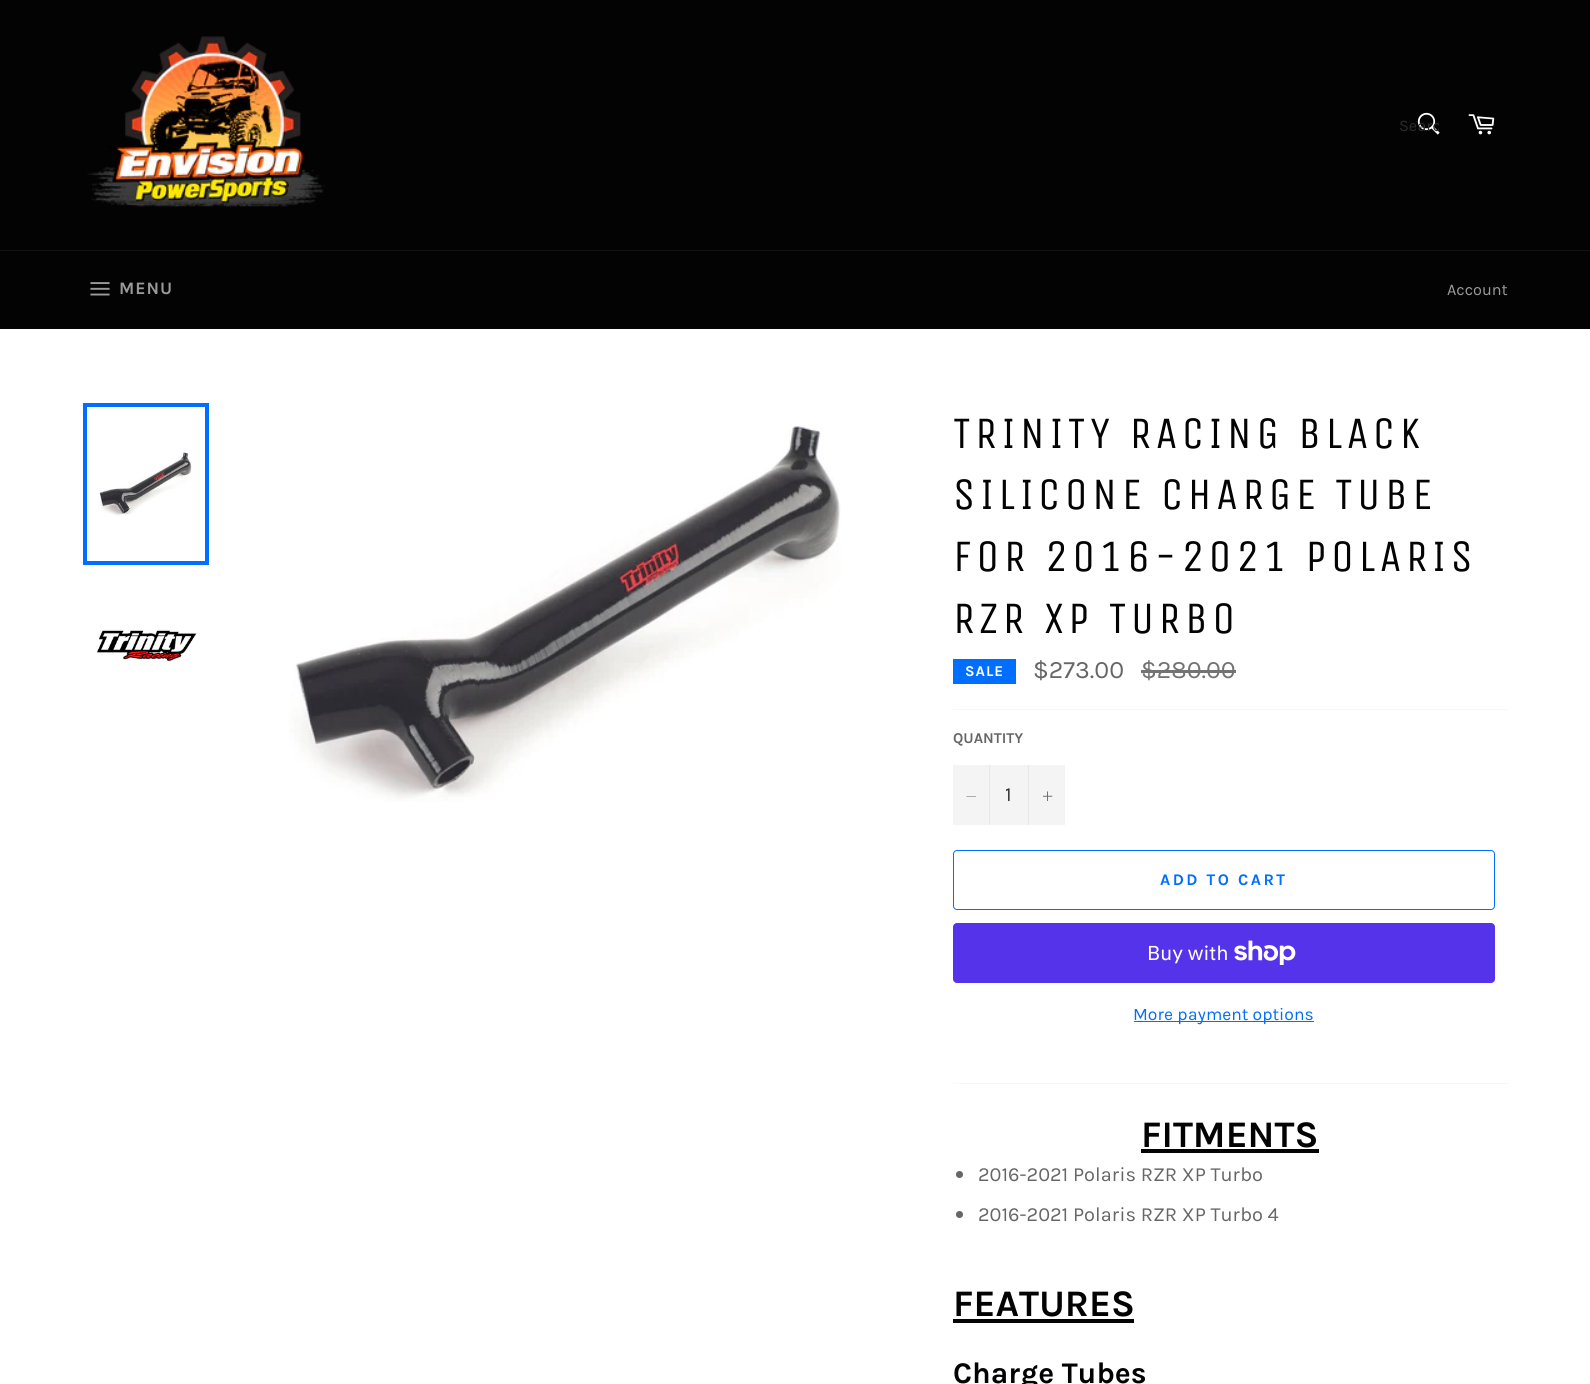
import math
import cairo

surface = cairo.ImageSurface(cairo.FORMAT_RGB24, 1590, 1384)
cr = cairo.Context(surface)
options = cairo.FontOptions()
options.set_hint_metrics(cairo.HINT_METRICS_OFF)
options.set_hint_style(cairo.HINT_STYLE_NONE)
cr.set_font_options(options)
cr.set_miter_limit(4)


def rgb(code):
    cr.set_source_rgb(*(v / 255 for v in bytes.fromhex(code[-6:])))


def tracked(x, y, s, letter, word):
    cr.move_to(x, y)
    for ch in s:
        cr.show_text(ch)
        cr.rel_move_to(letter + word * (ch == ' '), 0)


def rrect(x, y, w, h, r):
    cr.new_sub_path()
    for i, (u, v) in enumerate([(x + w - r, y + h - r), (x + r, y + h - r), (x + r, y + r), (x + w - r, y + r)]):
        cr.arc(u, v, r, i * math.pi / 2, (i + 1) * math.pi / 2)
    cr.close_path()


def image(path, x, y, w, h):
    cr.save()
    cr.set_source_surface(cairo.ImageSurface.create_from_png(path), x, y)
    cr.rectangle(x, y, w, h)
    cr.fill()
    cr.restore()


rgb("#030303")
cr.paint()
image("img/1.png", 87, 36, 238, 171)
image("img/2.png", 1417, 112, 23, 23)
image("img/3.png", 1468, 114, 27, 21)
rgb("#101010")
cr.rectangle(0, 250, 1590, 1)
cr.fill()
image("img/4.png", 90, 282, 20, 14)
rgb("#ffffff")
cr.rectangle(0, 329, 1590, 1055)
cr.fill()
image("img/5.png", 98, 452, 94, 64)
cr.rectangle(85, 405, 122, 158)
rgb("#006eff")
cr.set_line_width(4)
cr.stroke()
image("img/6.png", 96, 629, 101, 33)
image("img/7.png", 289, 425, 552, 377)
for x, y, w, h, color in [
    (953, 659, 63, 25, "#006eff"),
    (1141, 670, 95, 3, "#737373"),
    (953, 709, 555, 1, "#f7f7f7"),
    (953, 765, 112, 60, "#f4f4f4"),
    (989, 765, 1, 60, "#e7e7e7"),
]:
    rgb(color)
    cr.rectangle(x, y, w, h)
    cr.fill()
rgb("#666666")
cr.set_fill_rule(cairo.FILL_RULE_EVEN_ODD)
cr.new_path()
cr.move_to(976, 796)
cr.line_to(976, 796.5)
cr.line_to(966.5, 796.5)
cr.line_to(966.5, 796)
cr.close_path()
cr.fill()
rgb("#e7e7e7")
cr.rectangle(1028, 765, 1, 60)
cr.fill()
image("img/8.png", 1043, 791, 10, 10)
rrect(953.5, 850.5, 541, 59, 3.5)
rgb("#006eff")
cr.set_line_width(1)
cr.stroke()
rgb("#5433eb")
rrect(953, 923, 542, 60, 4)
cr.fill()
image("img/9.png", 1234, 940, 62, 25)
for x, y, w, h, color in [
    (1134, 1021, 180, 1, "#006eff"),
    (953, 1083, 555, 1, "#f7f7f7"),
    (1141, 1149, 178, 4, "#030303"),
]:
    rgb(color)
    cr.rectangle(x, y, w, h)
    cr.fill()
rgb("#666666")
cr.arc(959.5, 1174.5, 3.5, 0, 2 * math.pi)
cr.fill()
cr.arc(959.5, 1214.5, 3.5, 0, 2 * math.pi)
cr.fill()
rgb("#030303")
cr.rectangle(953, 1319, 181, 4)
cr.fill()
cr.save()
cr.set_fill_rule(cairo.FILL_RULE_WINDING)
cr.rectangle(1399, 116, 40, 19)
cr.clip()
cr.select_font_face("Karla")
cr.set_font_size(16.25)
rgb("#2a2a2a")
cr.move_to(1399, 131)
cr.show_text("Searc")
cr.restore()
cr.select_font_face("Karla", cairo.FONT_SLANT_NORMAL, cairo.FONT_WEIGHT_BOLD)
cr.set_font_size(17.5)
rgb("#9a9a9a")
tracked(119, 294, "MENU", 1, 0)
cr.select_font_face("Karla")
cr.set_font_size(16.25)
cr.move_to(1447, 295)
cr.show_text("Account")
cr.select_font_face("Unica One")
cr.set_font_size(45)
rgb("#030303")
for x, y, s in [
    (953, 448, "TRINITY RACING BLACK"),
    (953, 509, "SILICONE CHARGE TUBE"),
    (953, 571, "FOR 2016-2021 POLARIS"),
    (953, 633, "RZR XP TURBO"),
]:
    tracked(x, y, s, 4.5, 0)
cr.select_font_face("Karla", cairo.FONT_SLANT_NORMAL, cairo.FONT_WEIGHT_BOLD)
cr.set_font_size(15)
rgb("#ffffff")
tracked(965, 676, "SALE", 1, 0)
cr.select_font_face("Karla")
cr.set_font_size(25)
rgb("#666666")
cr.move_to(1033, 678)
cr.show_text("$273.00")
rgb("#737373")
cr.move_to(1141, 678)
cr.show_text("$280.00")
cr.select_font_face("Karla", cairo.FONT_SLANT_NORMAL, cairo.FONT_WEIGHT_BOLD)
cr.set_font_size(15)
rgb("#666666")
cr.move_to(953, 743)
cr.show_text("QUANTITY")
cr.select_font_face("Karla")
cr.set_font_size(20)
rgb("#333333")
cr.move_to(1005, 801)
cr.show_text("1")
cr.select_font_face("Karla", cairo.FONT_SLANT_NORMAL, cairo.FONT_WEIGHT_BOLD)
cr.set_font_size(16.25)
rgb("#006eff")
tracked(1160, 885, "ADD TO CART", 2.5, 0)
cr.select_font_face("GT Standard")
cr.set_font_size(20)
rgb("#ffffff")
cr.move_to(1147, 960)
cr.show_text("Buy with")
cr.select_font_face("Karla")
cr.set_font_size(17.5)
rgb("#006eff")
cr.move_to(1133, 1020)
cr.show_text("More payment options")
cr.select_font_face("Karla", cairo.FONT_SLANT_NORMAL, cairo.FONT_WEIGHT_BOLD)
cr.set_font_size(37.5)
rgb("#030303")
cr.move_to(1141, 1147)
cr.show_text("FITMENTS")
cr.select_font_face("Karla")
cr.set_font_size(20)
rgb("#666666")
cr.move_to(978, 1181)
cr.show_text("2016-2021 Polaris RZR XP Turbo")
cr.move_to(978, 1221)
cr.show_text("2016-2021 Polaris RZR XP Turbo 4")
cr.select_font_face("Karla", cairo.FONT_SLANT_NORMAL, cairo.FONT_WEIGHT_BOLD)
cr.set_font_size(37.5)
rgb("#030303")
cr.move_to(953, 1316)
cr.show_text("FEATURES")
cr.set_font_size(30)
cr.move_to(953, 1383)
cr.show_text("Charge Tubes")
surface.write_to_png("page.png")
